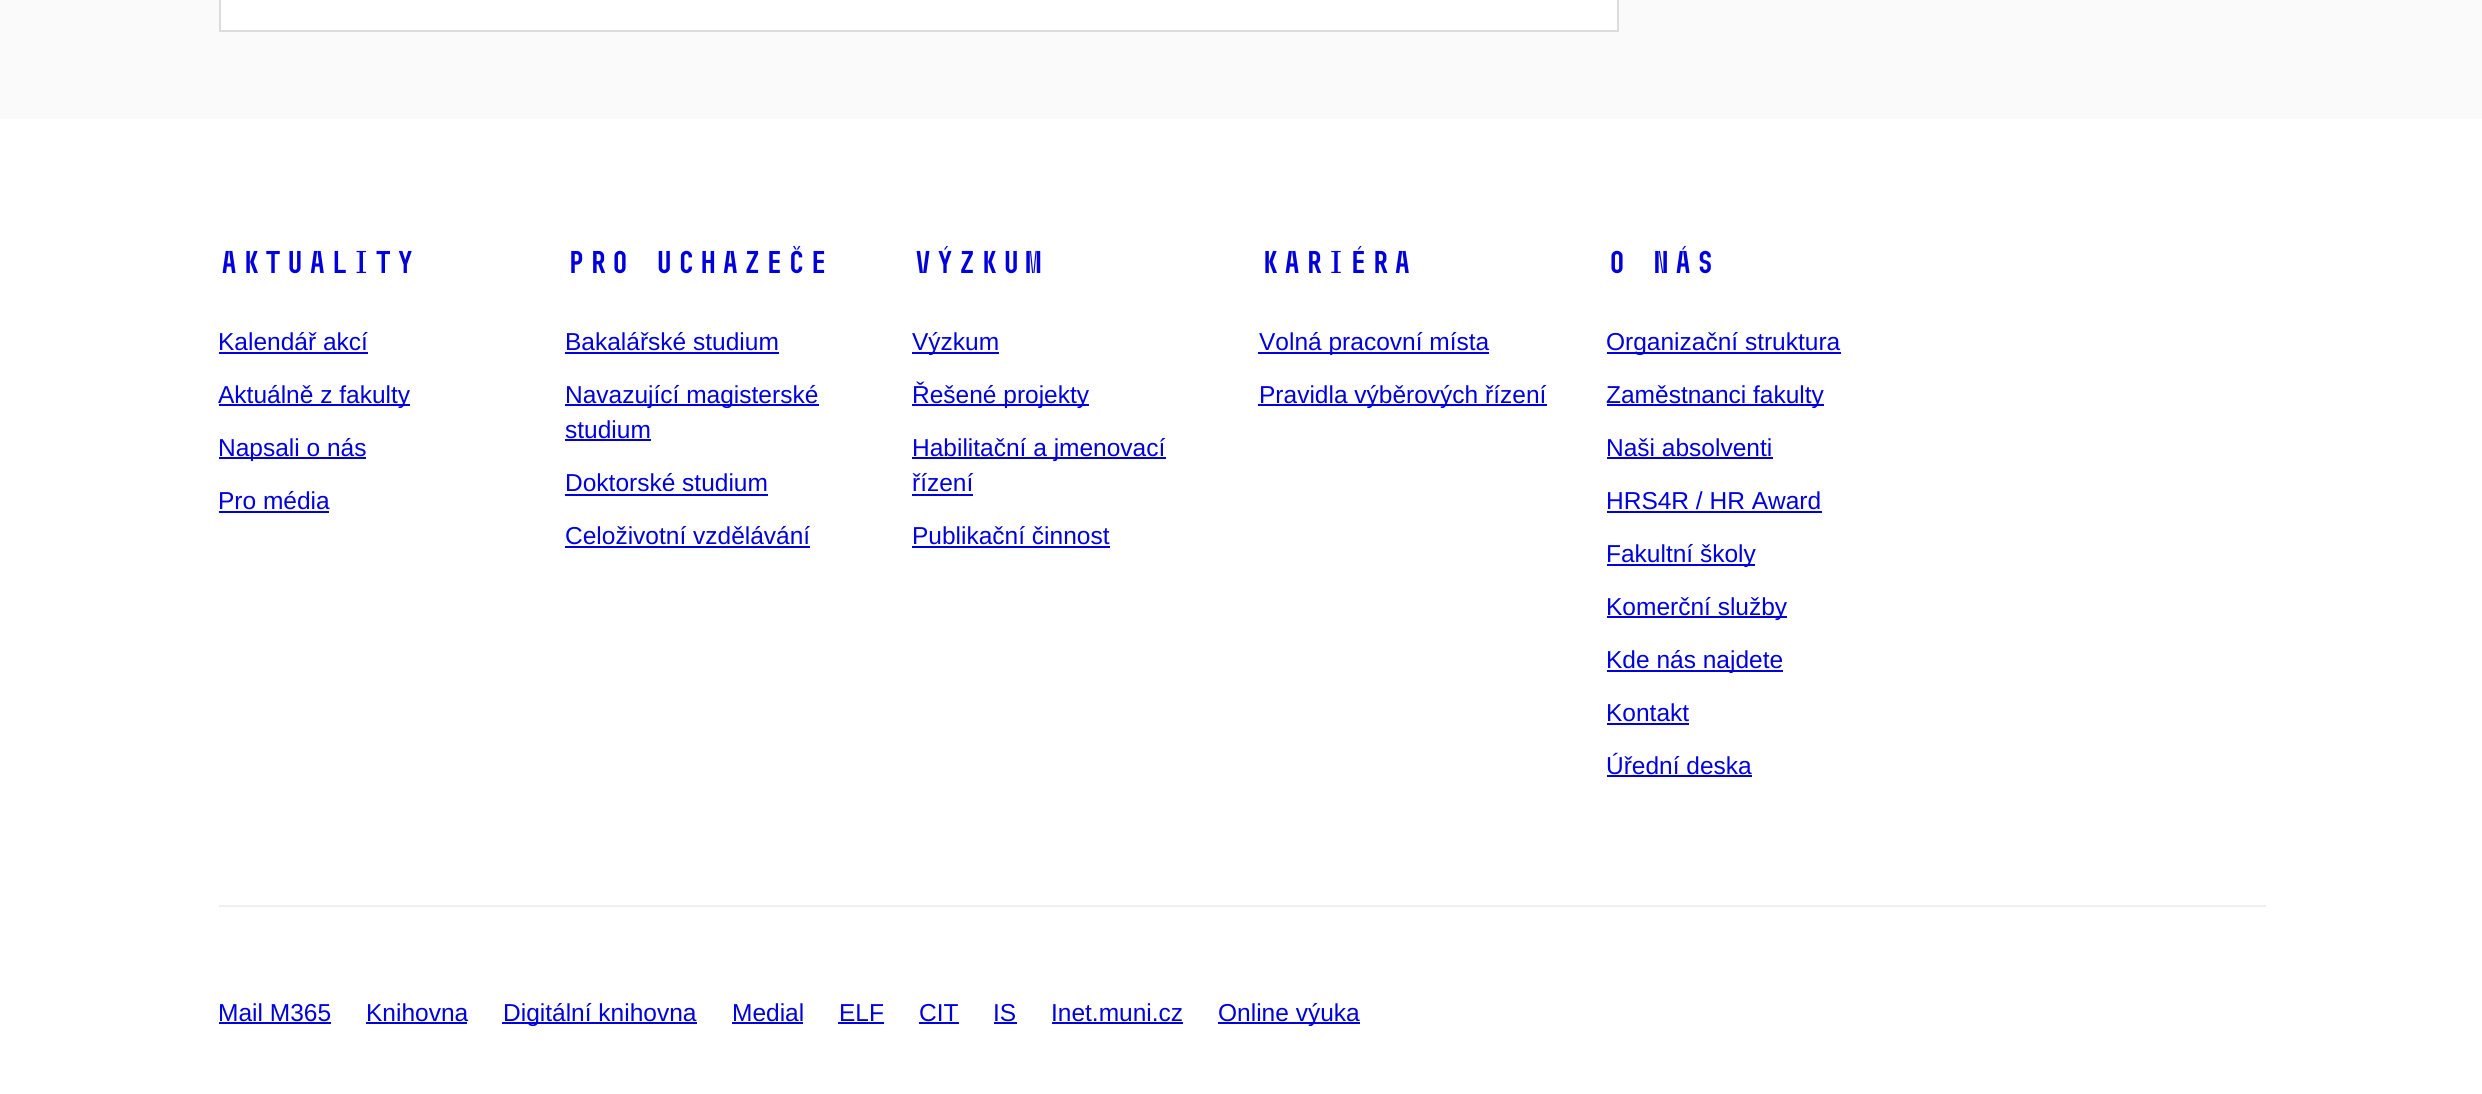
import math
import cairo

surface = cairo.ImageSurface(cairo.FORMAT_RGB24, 2482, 1094)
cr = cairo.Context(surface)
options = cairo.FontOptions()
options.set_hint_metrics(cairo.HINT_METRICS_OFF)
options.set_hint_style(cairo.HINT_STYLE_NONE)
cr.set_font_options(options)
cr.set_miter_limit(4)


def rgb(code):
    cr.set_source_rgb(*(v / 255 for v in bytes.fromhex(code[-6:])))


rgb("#fafafa")
cr.paint()
rgb("#ffffff")
cr.rectangle(220, -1, 1398, 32)
cr.fill_preserve()
rgb("#dcdcdc")
cr.stroke()
for x, y, w, h, color in [
    (0, 119, 2482, 975, "#ffffff"),
    (219, 905, 2047, 2, "#efefef"),
    (219, 352, 149, 2, "#0000dc"),
    (219, 404, 191, 2, "#0000dc"),
    (219, 457, 147, 2, "#0000dc"),
    (219, 511, 110, 2, "#0000dc"),
    (565, 352, 214, 2, "#0000dc"),
    (565, 404, 254, 2, "#0000dc"),
    (565, 439, 86, 2, "#0000dc"),
    (565, 494, 203, 2, "#0000dc"),
    (565, 546, 245, 2, "#0000dc"),
    (912, 352, 87, 2, "#0000dc"),
    (912, 404, 177, 2, "#0000dc"),
    (912, 457, 254, 2, "#0000dc"),
    (912, 494, 61, 2, "#0000dc"),
    (912, 546, 198, 2, "#0000dc"),
    (1258, 352, 231, 2, "#0000dc"),
    (1258, 404, 289, 2, "#0000dc"),
    (1607, 352, 234, 2, "#0000dc"),
    (1607, 404, 217, 2, "#0000dc"),
    (1607, 457, 166, 2, "#0000dc"),
    (1607, 511, 215, 2, "#0000dc"),
    (1607, 564, 148, 2, "#0000dc"),
    (1607, 616, 180, 2, "#0000dc"),
    (1607, 670, 176, 2, "#0000dc"),
    (1607, 723, 82, 2, "#0000dc"),
    (1607, 775, 145, 2, "#0000dc"),
    (219, 1022, 112, 2, "#0000dc"),
    (366, 1022, 101, 2, "#0000dc"),
    (502, 1022, 195, 2, "#0000dc"),
    (732, 1022, 71, 2, "#0000dc"),
    (838, 1022, 46, 2, "#0000dc"),
    (919, 1022, 40, 2, "#0000dc"),
    (994, 1022, 23, 2, "#0000dc"),
    (1052, 1022, 131, 2, "#0000dc"),
    (1218, 1022, 142, 2, "#0000dc"),
]:
    rgb(color)
    cr.rectangle(x, y, w, h)
    cr.fill()
cr.select_font_face("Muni", cairo.FONT_SLANT_NORMAL, cairo.FONT_WEIGHT_BOLD)
cr.set_font_size(31.5)
cr.move_to(218, 273)
cr.show_text("Aktuality")
cr.select_font_face("Liberation Sans")
cr.set_font_size(24.5)
for x, y, s in [
    (218, 350, "Kalendář akcí"),
    (218, 403, "Aktuálně z fakulty"),
    (218, 456, "Napsali o nás"),
    (218, 509, "Pro média"),
]:
    cr.move_to(x, y)
    cr.show_text(s)
cr.select_font_face("Muni", cairo.FONT_SLANT_NORMAL, cairo.FONT_WEIGHT_BOLD)
cr.set_font_size(31.5)
cr.move_to(565, 273)
cr.show_text("Pro uchazeče")
cr.select_font_face("Liberation Sans")
cr.set_font_size(24.5)
for x, y, s in [
    (565, 350, "Bakalářské studium"),
    (565, 403, "Navazující magisterské"),
    (565, 438, "studium"),
    (565, 491, "Doktorské studium"),
    (565, 544, "Celoživotní vzdělávání"),
]:
    cr.move_to(x, y)
    cr.show_text(s)
cr.select_font_face("Muni", cairo.FONT_SLANT_NORMAL, cairo.FONT_WEIGHT_BOLD)
cr.set_font_size(31.5)
cr.move_to(912, 273)
cr.show_text("Výzkum")
cr.select_font_face("Liberation Sans")
cr.set_font_size(24.5)
for x, y, s in [
    (912, 350, "Výzkum"),
    (912, 403, "Řešené projekty"),
    (912, 456, "Habilitační a jmenovací"),
    (912, 491, "řízení"),
    (912, 544, "Publikační činnost"),
]:
    cr.move_to(x, y)
    cr.show_text(s)
cr.select_font_face("Muni", cairo.FONT_SLANT_NORMAL, cairo.FONT_WEIGHT_BOLD)
cr.set_font_size(31.5)
cr.move_to(1259, 273)
cr.show_text("Kariéra")
cr.select_font_face("Liberation Sans")
cr.set_font_size(24.5)
cr.move_to(1259, 350)
cr.show_text("Volná pracovní místa")
cr.move_to(1259, 403)
cr.show_text("Pravidla výběrových řízení")
cr.select_font_face("Muni", cairo.FONT_SLANT_NORMAL, cairo.FONT_WEIGHT_BOLD)
cr.set_font_size(31.5)
cr.move_to(1606, 273)
cr.show_text("O nás")
cr.select_font_face("Liberation Sans")
cr.set_font_size(24.5)
for x, y, s in [
    (1606, 350, "Organizační struktura"),
    (1606, 403, "Zaměstnanci fakulty"),
    (1606, 456, "Naši absolventi"),
    (1606, 509, "HRS4R / HR Award"),
    (1606, 562, "Fakultní školy"),
    (1606, 615, "Komerční služby"),
    (1606, 668, "Kde nás najdete"),
    (1606, 721, "Kontakt"),
    (1606, 774, "Úřední deska"),
    (218, 1021, "Mail M365"),
    (366, 1021, "Knihovna"),
    (503, 1021, "Digitální knihovna"),
    (732, 1021, "Medial"),
    (839, 1021, "ELF"),
    (919, 1021, "CIT"),
    (993, 1021, "IS"),
    (1051, 1021, "Inet.muni.cz"),
    (1218, 1021, "Online výuka"),
]:
    cr.move_to(x, y)
    cr.show_text(s)
surface.write_to_png("page.png")
